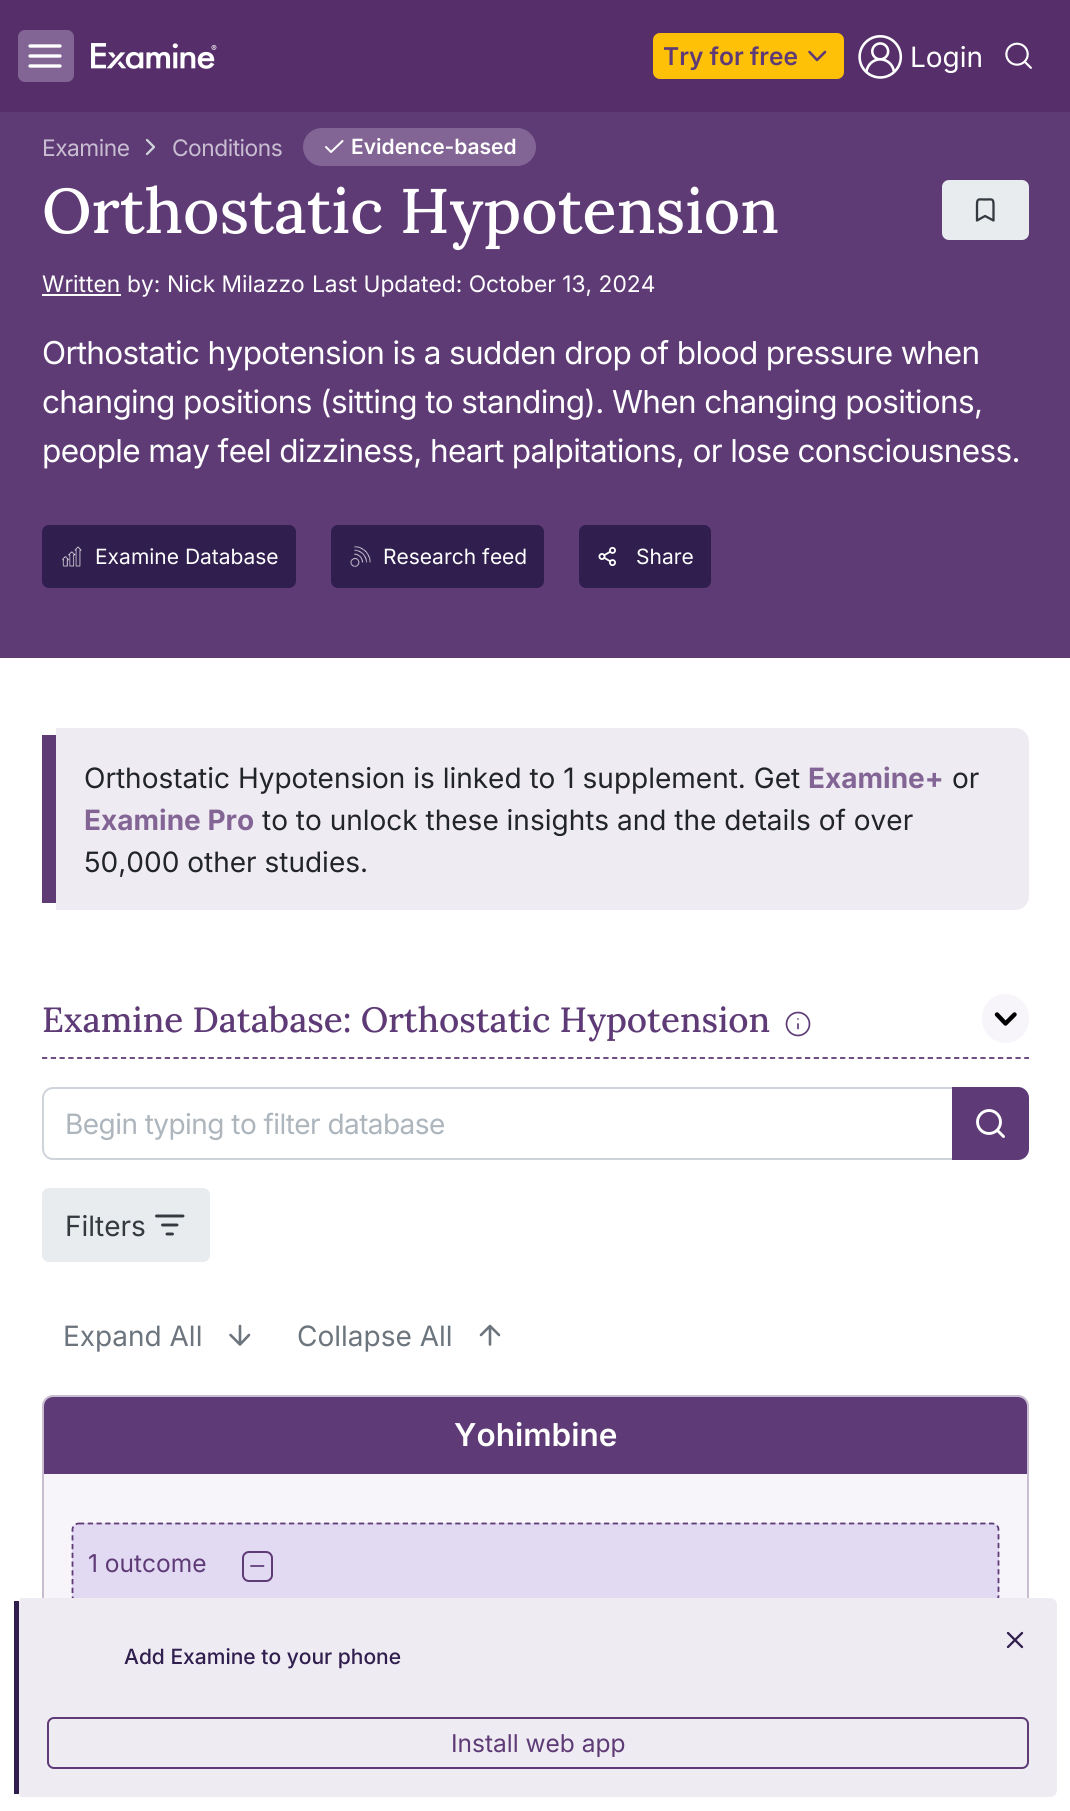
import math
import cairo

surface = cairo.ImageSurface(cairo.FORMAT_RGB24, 1070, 1811)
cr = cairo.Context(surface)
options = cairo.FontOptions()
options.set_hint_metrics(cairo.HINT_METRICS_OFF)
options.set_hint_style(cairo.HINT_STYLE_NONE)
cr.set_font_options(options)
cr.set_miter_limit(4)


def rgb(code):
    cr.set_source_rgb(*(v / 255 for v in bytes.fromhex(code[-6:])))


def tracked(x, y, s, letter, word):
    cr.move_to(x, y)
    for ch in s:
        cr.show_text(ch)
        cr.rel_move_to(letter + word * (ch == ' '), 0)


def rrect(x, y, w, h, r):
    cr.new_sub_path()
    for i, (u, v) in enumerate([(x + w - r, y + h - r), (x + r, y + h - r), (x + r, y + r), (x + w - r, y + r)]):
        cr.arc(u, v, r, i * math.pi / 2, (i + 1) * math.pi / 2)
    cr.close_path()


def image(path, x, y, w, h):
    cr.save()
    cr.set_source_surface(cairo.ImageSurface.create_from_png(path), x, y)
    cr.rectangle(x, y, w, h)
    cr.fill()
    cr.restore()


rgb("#5f3b76")
cr.paint()
rgb("#562e69")
cr.rectangle(0, 0, 1070, 112)
cr.fill()
rgb("#826595")
rrect(18, 30, 56, 52, 7)
cr.fill()
cr.new_path()
cr.move_to(30, 46)
cr.line_to(60, 46)
cr.move_to(30, 56)
cr.line_to(60, 56)
cr.move_to(30, 66)
cr.line_to(60, 66)
rgb("#ffffff")
cr.set_line_width(3.3)
cr.set_line_cap(cairo.LINE_CAP_ROUND)
cr.set_line_join(cairo.LINE_JOIN_ROUND)
cr.stroke()
image("img/1.png", 91, 43, 126, 26)
rgb("#ffc107")
rrect(653, 33, 191, 46, 7)
cr.fill()
cr.new_path()
cr.move_to(809.5, 52)
cr.line_to(817, 60)
cr.line_to(825, 52)
rgb("#5e3b76")
cr.set_line_width(2.6)
cr.stroke()
image("img/2.png", 858, 35, 45, 44)
image("img/3.png", 1005, 42, 27, 27)
cr.new_path()
cr.move_to(147, 154)
cr.line_to(154, 147)
cr.line_to(147, 140)
rgb("#ced4da")
cr.set_line_width(2.3)
cr.stroke()
rgb("#826595")
rrect(303, 128, 233, 38, 19)
cr.fill()
cr.new_path()
cr.move_to(342.5, 141)
cr.line_to(331, 152)
cr.line_to(326, 147)
rgb("#ffffff")
cr.set_line_width(2)
cr.stroke()
rgb("#e9ecef")
rrect(942, 180, 87, 60, 7)
cr.fill()
cr.new_path()
cr.move_to(993.5, 220.5)
cr.line_to(985, 216)
cr.line_to(977, 220.5)
cr.line_to(977, 205)
cr.curve_to(977, 198, 978.5, 199.5, 985, 199.5)
cr.curve_to(992, 199.5, 993.5, 198, 993.5, 205)
cr.close_path()
rgb("#343a40")
cr.set_line_width(2.3)
cr.stroke()
rgb("#ffffff")
cr.rectangle(42, 294, 79, 2)
cr.fill()
rgb("#2f1e4e")
rrect(42, 525, 254, 63, 7)
cr.fill()
image("img/4.png", 62, 546, 20, 21)
rrect(331, 525, 213, 63, 7)
cr.fill()
image("img/5.png", 350, 545, 21, 23)
rrect(579, 525, 132, 63, 7)
cr.fill()
image("img/6.png", 598, 546, 18, 21)
rgb("#ffffff")
cr.rectangle(0, 658, 1070, 1038)
cr.fill()
rgb("#efebf2")
cr.new_path()
cr.move_to(56, 728)
cr.line_to(1015, 728)
cr.curve_to(1023, 728, 1029, 734, 1029, 742)
cr.line_to(1029, 896)
cr.curve_to(1029, 904, 1023, 910, 1015, 910)
cr.line_to(56, 910)
cr.close_path()
cr.fill()
rgb("#5f3b76")
cr.rectangle(42, 735, 14, 168)
cr.fill()
cr.new_path()
cr.move_to(42, 1058)
cr.line_to(1029, 1058)
rgb("#5e3b76")
cr.set_line_width(1.8)
cr.set_line_cap(cairo.LINE_CAP_BUTT)
cr.set_line_join(cairo.LINE_JOIN_MITER)
cr.set_dash([5.25, 3.52])
cr.stroke()
cr.arc(798, 1024, 11.5, 0, 2 * math.pi)
cr.set_line_width(1.7)
cr.set_dash([])
cr.stroke()
cr.new_path()
cr.move_to(798, 1028.5)
cr.line_to(798, 1024)
cr.move_to(798, 1019)
cr.line_to(798, 1019)
cr.set_line_cap(cairo.LINE_CAP_ROUND)
cr.set_line_join(cairo.LINE_JOIN_ROUND)
cr.stroke()
rgb("#f7f5f9")
rrect(982, 994, 47, 49, 23.5)
cr.fill()
cr.new_path()
cr.move_to(997, 1014.5)
cr.line_to(1005.5, 1023.5)
cr.line_to(1014.5, 1014.5)
rgb("#000000")
cr.set_line_width(4.4)
cr.stroke()
rrect(43, 1088, 985, 71, 10)
rgb("#ced4da")
cr.set_line_width(2)
cr.set_line_cap(cairo.LINE_CAP_BUTT)
cr.set_line_join(cairo.LINE_JOIN_MITER)
cr.stroke()
rgb("#5e3b76")
cr.new_path()
cr.move_to(952, 1087)
cr.line_to(1018, 1087)
cr.curve_to(1024, 1087, 1029, 1092, 1029, 1098)
cr.line_to(1029, 1149)
cr.curve_to(1029, 1155, 1024, 1160, 1018, 1160)
cr.line_to(952, 1160)
cr.close_path()
cr.fill()
cr.new_path()
cr.move_to(1003.5, 1136.5)
cr.line_to(997.5, 1130.5)
rgb("#ffffff")
cr.set_line_width(2.9)
cr.set_line_cap(cairo.LINE_CAP_ROUND)
cr.set_line_join(cairo.LINE_JOIN_ROUND)
cr.stroke()
cr.arc(989, 1122, 11.5, 0, 2 * math.pi)
cr.set_line_cap(cairo.LINE_CAP_BUTT)
cr.set_line_join(cairo.LINE_JOIN_MITER)
cr.stroke()
rgb("#e9ecef")
rrect(42, 1188, 168, 74, 7)
cr.fill()
cr.new_path()
cr.move_to(156.5, 1216)
cr.line_to(183, 1216)
cr.move_to(162.5, 1225)
cr.line_to(177, 1225)
cr.move_to(167, 1234)
cr.line_to(172.5, 1234)
rgb("#343a40")
cr.set_line_cap(cairo.LINE_CAP_ROUND)
cr.set_line_join(cairo.LINE_JOIN_ROUND)
cr.stroke()
cr.new_path()
cr.move_to(240, 1326)
cr.line_to(240, 1344.5)
cr.move_to(249, 1335)
cr.line_to(240, 1344.5)
cr.line_to(230.5, 1335)
rgb("#6c757d")
cr.set_line_width(2.6)
cr.stroke()
cr.new_path()
cr.move_to(481, 1335)
cr.line_to(490, 1326)
cr.line_to(499, 1335)
cr.move_to(490, 1344.5)
cr.line_to(490, 1326)
cr.stroke()
rgb("#f7f5f9")
rrect(43, 1396, 985, 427, 10)
cr.fill_preserve()
rgb("#c9bdd2")
cr.set_line_width(2)
cr.set_line_cap(cairo.LINE_CAP_BUTT)
cr.set_line_join(cairo.LINE_JOIN_MITER)
cr.stroke()
rgb("#5e3b76")
cr.new_path()
cr.move_to(53, 1397)
cr.line_to(1018, 1397)
cr.curve_to(1023, 1397, 1027, 1401, 1027, 1406)
cr.line_to(1027, 1474)
cr.line_to(44, 1474)
cr.line_to(44, 1406)
cr.curve_to(44, 1401, 48, 1397, 53, 1397)
cr.close_path()
cr.fill()
rgb("#e2d9f3")
rrect(72, 1523, 927, 80, 7)
cr.fill()
cr.new_path()
cr.move_to(79, 1523.5)
cr.line_to(992, 1523.5)
cr.curve_to(995.5, 1523.5, 998.5, 1526, 998.5, 1529.5)
cr.line_to(998.5, 1596)
cr.curve_to(998.5, 1599.5, 995.5, 1602, 992, 1602)
cr.line_to(79, 1602)
cr.curve_to(75.5, 1602, 72.5, 1599.5, 72.5, 1596)
cr.line_to(72.5, 1529.5)
cr.curve_to(72.5, 1526, 75.5, 1523.5, 79, 1523.5)
cr.close_path()
rgb("#5e3b76")
cr.set_line_width(1.8)
cr.set_dash([5.25, 3.5])
cr.stroke()
rrect(243, 1552, 29, 29, 6)
cr.set_line_width(2)
cr.set_dash([])
cr.stroke()
cr.new_path()
cr.move_to(251, 1566)
cr.line_to(263.5, 1566)
cr.set_line_width(1.8)
cr.set_line_cap(cairo.LINE_CAP_ROUND)
cr.set_line_join(cairo.LINE_JOIN_ROUND)
cr.stroke()
rgb("#ffffff")
cr.rectangle(0, 1696, 1070, 115)
cr.fill()
rgb("#efebf2")
cr.new_path()
cr.move_to(21, 1598)
cr.line_to(1050, 1598)
cr.curve_to(1054, 1598, 1057, 1601, 1057, 1605)
cr.line_to(1057, 1790)
cr.curve_to(1057, 1794, 1054, 1797, 1050, 1797)
cr.line_to(21, 1797)
cr.curve_to(20, 1797, 19, 1794, 19, 1790)
cr.line_to(19, 1605)
cr.curve_to(19, 1601, 20, 1598, 21, 1598)
cr.close_path()
cr.fill()
rgb("#2f1e4e")
cr.rectangle(14, 1601, 5, 193)
cr.fill()
cr.new_path()
cr.move_to(1022, 1633)
cr.line_to(1008, 1647)
cr.move_to(1008, 1633)
cr.line_to(1022, 1647)
cr.set_line_width(2.3)
cr.stroke()
rrect(48, 1718, 980, 50, 6)
rgb("#5e3b76")
cr.set_line_width(2)
cr.set_line_cap(cairo.LINE_CAP_BUTT)
cr.set_line_join(cairo.LINE_JOIN_MITER)
cr.stroke()
cr.select_font_face("Inter SemiBold")
cr.set_font_size(24.5)
cr.move_to(663, 65)
cr.show_text("Try for free")
cr.select_font_face("Inter")
cr.set_font_size(28)
rgb("#ffffff")
cr.move_to(910, 67)
cr.show_text("Login")
cr.set_font_size(22.75)
rgb("#c9bdd2")
tracked(42, 156, "Examine", -0.5, 0)
tracked(172, 156, "Conditions", -0.5, 0)
cr.select_font_face("Inter SemiBold")
cr.set_font_size(21)
rgb("#ffffff")
cr.move_to(351, 154)
cr.show_text("Evidence-based")
cr.select_font_face("Lora Medium")
cr.set_font_size(63)
cr.move_to(42, 233)
cr.show_text("Orthostatic Hypotension")
cr.select_font_face("Inter")
cr.set_font_size(22.75)
for x, y, s in [
    (42, 292, "Written"),
    (127, 292, "by:"),
    (167, 292, "Nick Milazzo"),
    (312, 292, "Last Updated: October 13, 2024"),
]:
    cr.move_to(x, y)
    cr.show_text(s)
cr.set_font_size(31.5)
for x, y, s in [
    (42, 364, "Orthostatic hypotension is a sudden drop of blood pressure when"),
    (42, 413, "changing positions (sitting to standing). When changing positions,"),
    (42, 462, "people may feel dizziness, heart palpitations, or lose consciousness."),
]:
    tracked(x, y, s, -0.63, 0)
cr.set_font_size(21)
for x, y, s in [
    (95, 564, "Examine Database"),
    (383, 564, "Research feed"),
    (636, 564, "Share"),
]:
    cr.move_to(x, y)
    cr.show_text(s)
cr.set_font_size(28)
rgb("#212529")
cr.move_to(84, 788)
cr.show_text("Orthostatic Hypotension is linked to 1 supplement. Get")
cr.select_font_face("Inter", cairo.FONT_SLANT_NORMAL, cairo.FONT_WEIGHT_BOLD)
rgb("#826595")
cr.move_to(808, 788)
cr.show_text("Examine+")
cr.select_font_face("Inter")
rgb("#212529")
cr.move_to(952, 788)
cr.show_text("or")
cr.select_font_face("Inter", cairo.FONT_SLANT_NORMAL, cairo.FONT_WEIGHT_BOLD)
rgb("#826595")
cr.move_to(84, 830)
cr.show_text("Examine Pro")
cr.select_font_face("Inter")
rgb("#212529")
cr.move_to(262, 830)
cr.show_text("to to unlock these insights and the details of over")
cr.move_to(84, 872)
cr.show_text("50,000 other studies.")
cr.select_font_face("Lora Medium")
cr.set_font_size(35)
rgb("#5e3b76")
cr.move_to(42, 1032)
cr.show_text("Examine Database: Orthostatic Hypotension")
cr.select_font_face("Inter")
cr.set_font_size(28)
rgb("#adb5bd")
tracked(65, 1134, "Begin typing to filter database", -0.55, 0)
rgb("#343a40")
cr.move_to(65, 1236)
cr.show_text("Filters")
rgb("#6c757d")
cr.move_to(63, 1346)
cr.show_text("Expand All")
cr.move_to(297, 1346)
cr.show_text("Collapse All")
cr.select_font_face("Inter SemiBold")
cr.set_font_size(31.5)
rgb("#ffffff")
cr.move_to(454, 1446)
cr.show_text("Yohimbine")
cr.select_font_face("Inter")
cr.set_font_size(24.5)
rgb("#5e3b76")
cr.move_to(88, 1572)
cr.show_text("1 outcome")
cr.select_font_face("Inter Medium")
cr.set_font_size(21)
rgb("#2f1e4e")
cr.move_to(124, 1664)
cr.show_text("Add Examine to your phone")
cr.select_font_face("Inter")
cr.set_font_size(24.5)
rgb("#5e3b76")
cr.move_to(451, 1752)
cr.show_text("Install web app")
surface.write_to_png("page.png")
